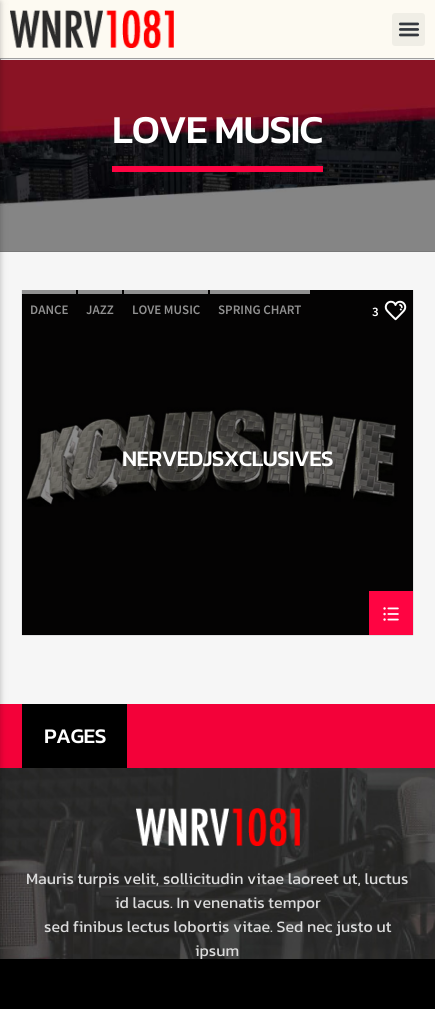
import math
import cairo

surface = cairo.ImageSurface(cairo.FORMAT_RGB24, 435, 1009)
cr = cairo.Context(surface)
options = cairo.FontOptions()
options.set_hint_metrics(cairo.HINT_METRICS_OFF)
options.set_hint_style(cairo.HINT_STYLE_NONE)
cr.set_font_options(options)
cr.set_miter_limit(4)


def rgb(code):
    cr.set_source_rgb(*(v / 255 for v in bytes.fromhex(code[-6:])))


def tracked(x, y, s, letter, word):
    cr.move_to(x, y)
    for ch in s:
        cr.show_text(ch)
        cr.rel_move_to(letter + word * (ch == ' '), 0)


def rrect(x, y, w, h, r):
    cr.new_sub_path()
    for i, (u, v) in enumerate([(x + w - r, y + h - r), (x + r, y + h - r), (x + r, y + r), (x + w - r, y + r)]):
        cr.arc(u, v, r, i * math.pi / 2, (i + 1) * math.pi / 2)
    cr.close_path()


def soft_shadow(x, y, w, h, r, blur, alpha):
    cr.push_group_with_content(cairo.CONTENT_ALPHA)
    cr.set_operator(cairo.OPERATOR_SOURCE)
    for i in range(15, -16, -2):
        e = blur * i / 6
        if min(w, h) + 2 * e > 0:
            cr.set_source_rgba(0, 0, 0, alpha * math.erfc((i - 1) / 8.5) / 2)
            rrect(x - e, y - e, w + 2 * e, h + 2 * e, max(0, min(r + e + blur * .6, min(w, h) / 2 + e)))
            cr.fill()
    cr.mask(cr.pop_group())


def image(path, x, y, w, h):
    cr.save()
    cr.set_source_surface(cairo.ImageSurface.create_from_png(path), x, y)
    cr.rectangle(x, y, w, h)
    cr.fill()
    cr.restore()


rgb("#f6f6f6")
cr.paint()
rgb("#fdfaf2")
cr.rectangle(0, 0, 435, 58)
cr.fill()
image("img/1.png", 10, 10, 164, 38)
rgb("#f0eee6")
rrect(392, 13, 33, 33, 3)
cr.fill()
image("img/2.png", 398, 22, 22, 15)
for x, y, w, h, color in [
    (0, 58, 435, 1, "#9f9f9f"),
    (434, 58, 1, 2, "#eeeeee"),
    (0, 59, 435, 1, "#eeeeee"),
    (0, 58, 1, 2, "#9f9f9f"),
    (0, 60, 435, 192, "#000000"),
]:
    rgb(color)
    cr.rectangle(x, y, w, h)
    cr.fill()
image("img/3.png", 0, 60, 435, 192)
rgb("#ff0442")
cr.rectangle(112, 166, 211, 6)
cr.fill()
rgb("#000000")
cr.rectangle(22, 290, 391, 345)
cr.fill()
image("img/4.png", 21, 290, 393, 346)
for x, y, w, h, color in [
    (22, 290, 54, 4, "#919191"),
    (78, 290, 44, 4, "#919191"),
    (124, 290, 84, 4, "#919191"),
    (210, 290, 100, 4, "#919191"),
]:
    rgb(color)
    cr.rectangle(x, y, w, h)
    cr.fill()
image("img/5.png", 384, 300, 23, 21)
rgb("#ff0442")
cr.rectangle(369, 591, 44, 44)
cr.fill()
image("img/6.png", 383, 607, 16, 14)
rgb("#f30139")
cr.rectangle(0, 704, 435, 64)
cr.fill()
rgb("#000000")
cr.rectangle(22, 704, 105, 64)
cr.fill()
image("img/7.png", 0, 768, 435, 191)
image("img/8.png", 136, 808, 164, 38)
cr.select_font_face("Kanit Medium")
cr.set_font_size(40)
rgb("#ffffff")
tracked(112, 143, "LOVE MUSIC", -1.25, 0)
cr.select_font_face("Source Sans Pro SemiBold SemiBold")
cr.set_font_size(13)
rgb("#919191")
for x, y, s in [
    (30, 314, "DANCE"),
    (86, 314, "JAZZ"),
    (132, 314, "LOVE MUSIC"),
    (218, 314, "SPRING CHART"),
]:
    cr.move_to(x, y)
    cr.show_text(s)
rgb("#ffffff")
cr.move_to(372, 316)
cr.show_text("3")
cr.select_font_face("Kanit Medium")
cr.set_font_size(22.5)
tracked(122, 466, "NERVEDJSXCLUSIVES", -0.7, 0)
cr.set_font_size(21)
tracked(44, 743, "PAGES", -0.5, 0)
cr.select_font_face("Kanit")
cr.set_font_size(16)
rgb("#dbdbdb")
for x, y, s in [
    (26, 884, "Mauris turpis velit, sollicitudin vitae laoreet ut, luctus"),
    (115, 908, "id lacus. In venenatis tempor"),
    (44, 932, "sed finibus lectus lobortis vitae. Sed nec justo ut"),
    (195, 956, "ipsum"),
]:
    cr.move_to(x, y)
    cr.show_text(s)
rgb("#000000")
cr.rectangle(0, 959, 435, 50)
cr.fill()
rgb("#000000")
soft_shadow(-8, 2, 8, 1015, 0, 2.5, 0.16)
soft_shadow(-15, 2, 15, 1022, 0, 5, 0.12)
surface.write_to_png("page.png")
